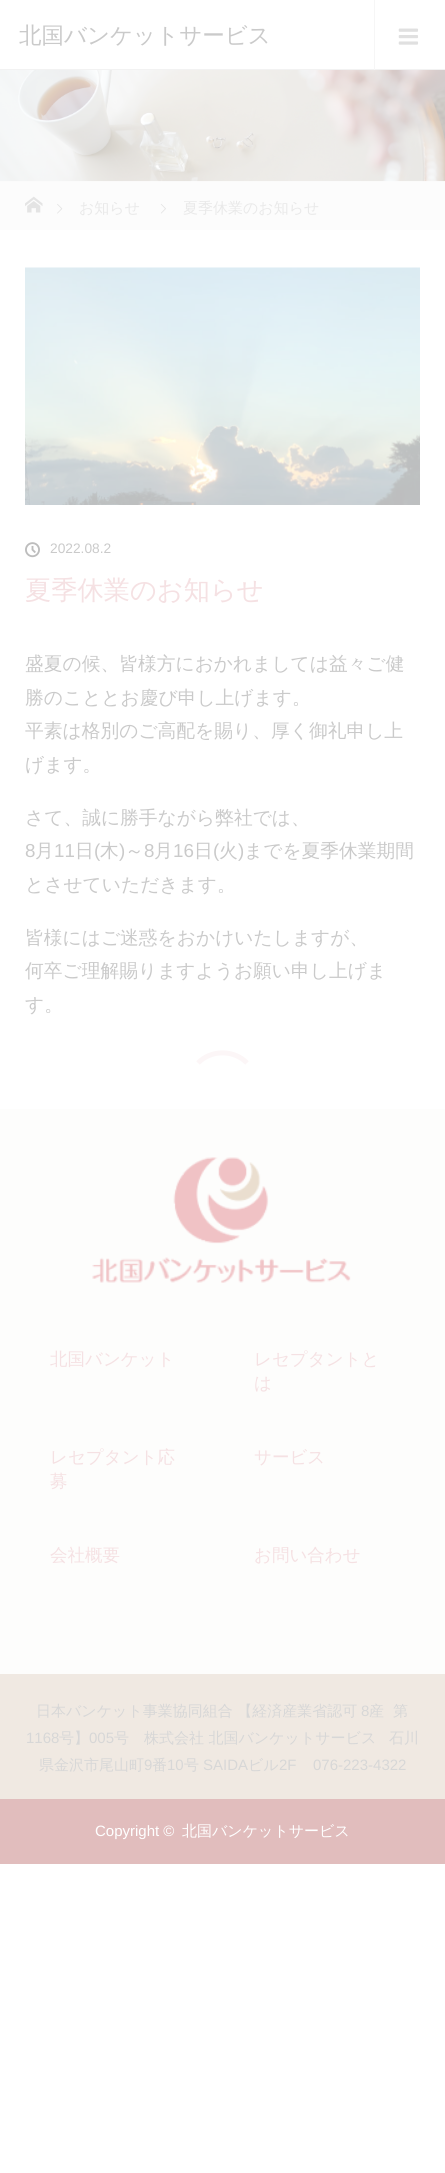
import math
import cairo

surface = cairo.ImageSurface(cairo.FORMAT_RGB24, 445, 2173)
cr = cairo.Context(surface)
options = cairo.FontOptions()
options.set_hint_metrics(cairo.HINT_METRICS_OFF)
options.set_hint_style(cairo.HINT_STYLE_NONE)
cr.set_font_options(options)
cr.set_miter_limit(4)


def rgb(code):
    cr.set_source_rgb(*(v / 255 for v in bytes.fromhex(code[-6:])))


def image(path, x, y, w, h):
    cr.save()
    cr.set_source_surface(cairo.ImageSurface.create_from_png(path), x, y)
    cr.rectangle(x, y, w, h)
    cr.fill()
    cr.restore()


rgb("#ffffff")
cr.paint()
rgb("#f2f2f2")
cr.rectangle(0, 69, 445, 1)
cr.fill()
rgb("#f6f6f6")
cr.rectangle(374, 0, 1, 70)
cr.fill()
image("img/1.png", 398, 28, 21, 17)
rgb("#fcfcfc")
cr.rectangle(0, 181, 445, 49)
cr.fill()
image("img/2.png", 0, 70, 445, 112)
image("img/3.png", 25, 196, 18, 17)
image("img/4.png", 57, 203, 6, 11)
image("img/5.png", 160, 203, 6, 11)
image("img/6.png", 25, 267, 395, 238)
image("img/7.png", 25, 542, 15, 16)
rgb("#fdfdfc")
cr.rectangle(0, 1109, 445, 565)
cr.fill()
image("img/8.png", 92, 1157, 259, 126)
rgb("#f0e9e2")
cr.rectangle(0, 1674, 445, 125)
cr.fill()
rgb("#e1bdbd")
cr.rectangle(0, 1799, 445, 65)
cr.fill()
cr.new_path()
cr.move_to(198, 1063)
cr.curve_to(211, 1049.5, 234, 1049.5, 247, 1063)
rgb("#fcf6f7")
cr.set_line_width(5)
cr.stroke()
cr.select_font_face("WenQuanYi Zen Hei Medium")
cr.set_font_size(22.5)
rgb("#cacaca")
cr.move_to(19, 43)
cr.show_text("北国バンケットサービス")
cr.set_font_size(15)
rgb("#e9e9e9")
cr.move_to(79, 213)
cr.show_text("お知らせ")
cr.move_to(183, 213)
cr.show_text("夏季休業のお知らせ")
cr.select_font_face("Liberation Sans")
cr.set_font_size(13.75)
rgb("#cacaca")
cr.move_to(50, 553)
cr.show_text("2022.08.2")
cr.select_font_face("WenQuanYi Zen Hei Medium")
cr.set_font_size(26.25)
rgb("#f5e1e3")
cr.move_to(25, 599)
cr.show_text("夏季休業のお知らせ")
cr.set_font_size(18.75)
rgb("#cacaca")
for x, y, s in [
    (25, 670, "盛夏の候、皆様方におかれましては益々ご健"),
    (25, 704, "勝のこととお慶び申し上げます。"),
    (25, 737, "平素は格別のご高配を賜り、厚く御礼申し上"),
    (25, 771, "げます。"),
    (25, 824, "さて、誠に勝手ながら弊社では、"),
]:
    cr.move_to(x, y)
    cr.show_text(s)
cr.select_font_face("Liberation Sans")
cr.move_to(25, 857)
cr.show_text("8")
cr.select_font_face("WenQuanYi Zen Hei Medium")
cr.move_to(35, 857)
cr.show_text("月")
cr.select_font_face("Liberation Sans")
cr.move_to(54, 857)
cr.show_text("11")
cr.select_font_face("WenQuanYi Zen Hei Medium")
cr.move_to(75, 857)
cr.show_text("日")
cr.select_font_face("Liberation Sans")
cr.move_to(94, 857)
cr.show_text("(")
cr.select_font_face("WenQuanYi Zen Hei Medium")
cr.move_to(100, 857)
cr.show_text("木")
cr.select_font_face("Liberation Sans")
cr.move_to(119, 857)
cr.show_text(")")
cr.select_font_face("WenQuanYi Zen Hei Medium")
cr.move_to(125, 857)
cr.show_text("～")
cr.select_font_face("Liberation Sans")
cr.move_to(144, 857)
cr.show_text("8")
cr.select_font_face("WenQuanYi Zen Hei Medium")
cr.move_to(154, 857)
cr.show_text("月")
cr.select_font_face("Liberation Sans")
cr.move_to(173, 857)
cr.show_text("16")
cr.select_font_face("WenQuanYi Zen Hei Medium")
cr.move_to(194, 857)
cr.show_text("日")
cr.select_font_face("Liberation Sans")
cr.move_to(213, 857)
cr.show_text("(")
cr.select_font_face("WenQuanYi Zen Hei Medium")
cr.move_to(219, 857)
cr.show_text("火")
cr.select_font_face("Liberation Sans")
cr.move_to(238, 857)
cr.show_text(")")
cr.select_font_face("WenQuanYi Zen Hei Medium")
for x, y, s in [
    (244, 857, "までを夏季休業期間"),
    (25, 891, "とさせていただきます。"),
    (25, 944, "皆様にはご迷惑をおかけいたしますが、"),
    (25, 977, "何卒ご理解賜りますようお願い申し上げま"),
    (25, 1011, "す。"),
]:
    cr.move_to(x, y)
    cr.show_text(s)
cr.set_font_size(17.5)
rgb("#f5e1e3")
for x, y, s in [
    (50, 1365, "北国バンケット"),
    (254, 1365, "レセプタントと"),
    (254, 1389, "は"),
    (50, 1463, "レセプタント応"),
    (50, 1487, "募"),
    (254, 1463, "サービス"),
    (50, 1561, "会社概要"),
    (254, 1561, "お問い合わせ"),
]:
    cr.move_to(x, y)
    cr.show_text(s)
cr.set_font_size(15)
rgb("#d7d7d7")
cr.move_to(36, 1716)
cr.show_text("日本バンケット事業協同組合 【経済産業省認可")
cr.select_font_face("Liberation Sans")
cr.move_to(361, 1716)
cr.show_text("8")
cr.select_font_face("WenQuanYi Zen Hei Medium")
cr.move_to(369, 1716)
cr.show_text("産")
cr.move_to(393, 1716)
cr.show_text("第")
cr.select_font_face("Liberation Sans")
cr.move_to(26, 1743)
cr.show_text("1168")
cr.select_font_face("WenQuanYi Zen Hei Medium")
cr.move_to(59, 1743)
cr.show_text("号】")
cr.select_font_face("Liberation Sans")
cr.move_to(89, 1743)
cr.show_text("005")
cr.select_font_face("WenQuanYi Zen Hei Medium")
for x, y, s in [
    (114, 1743, "号　株式会社 北国バンケットサービス"),
    (389, 1743, "石川"),
    (39, 1770, "県金沢市尾山町"),
]:
    cr.move_to(x, y)
    cr.show_text(s)
cr.select_font_face("Liberation Sans")
cr.move_to(144, 1770)
cr.show_text("9")
cr.select_font_face("WenQuanYi Zen Hei Medium")
cr.move_to(152, 1770)
cr.show_text("番")
cr.select_font_face("Liberation Sans")
cr.move_to(167, 1770)
cr.show_text("10")
cr.select_font_face("WenQuanYi Zen Hei Medium")
cr.move_to(184, 1770)
cr.show_text("号")
cr.select_font_face("Liberation Sans")
cr.move_to(203, 1770)
cr.show_text("SAIDA")
cr.select_font_face("WenQuanYi Zen Hei Medium")
cr.move_to(248, 1770)
cr.show_text("ビル")
cr.select_font_face("Liberation Sans")
cr.move_to(279, 1770)
cr.show_text("2F")
cr.move_to(313, 1770)
cr.show_text("076-223-4322")
rgb("#ffffff")
cr.move_to(95, 1836)
cr.show_text("Copyright ©")
cr.select_font_face("WenQuanYi Zen Hei Medium")
cr.move_to(182, 1836)
cr.show_text("北国バンケットサービス")
surface.write_to_png("page.png")
